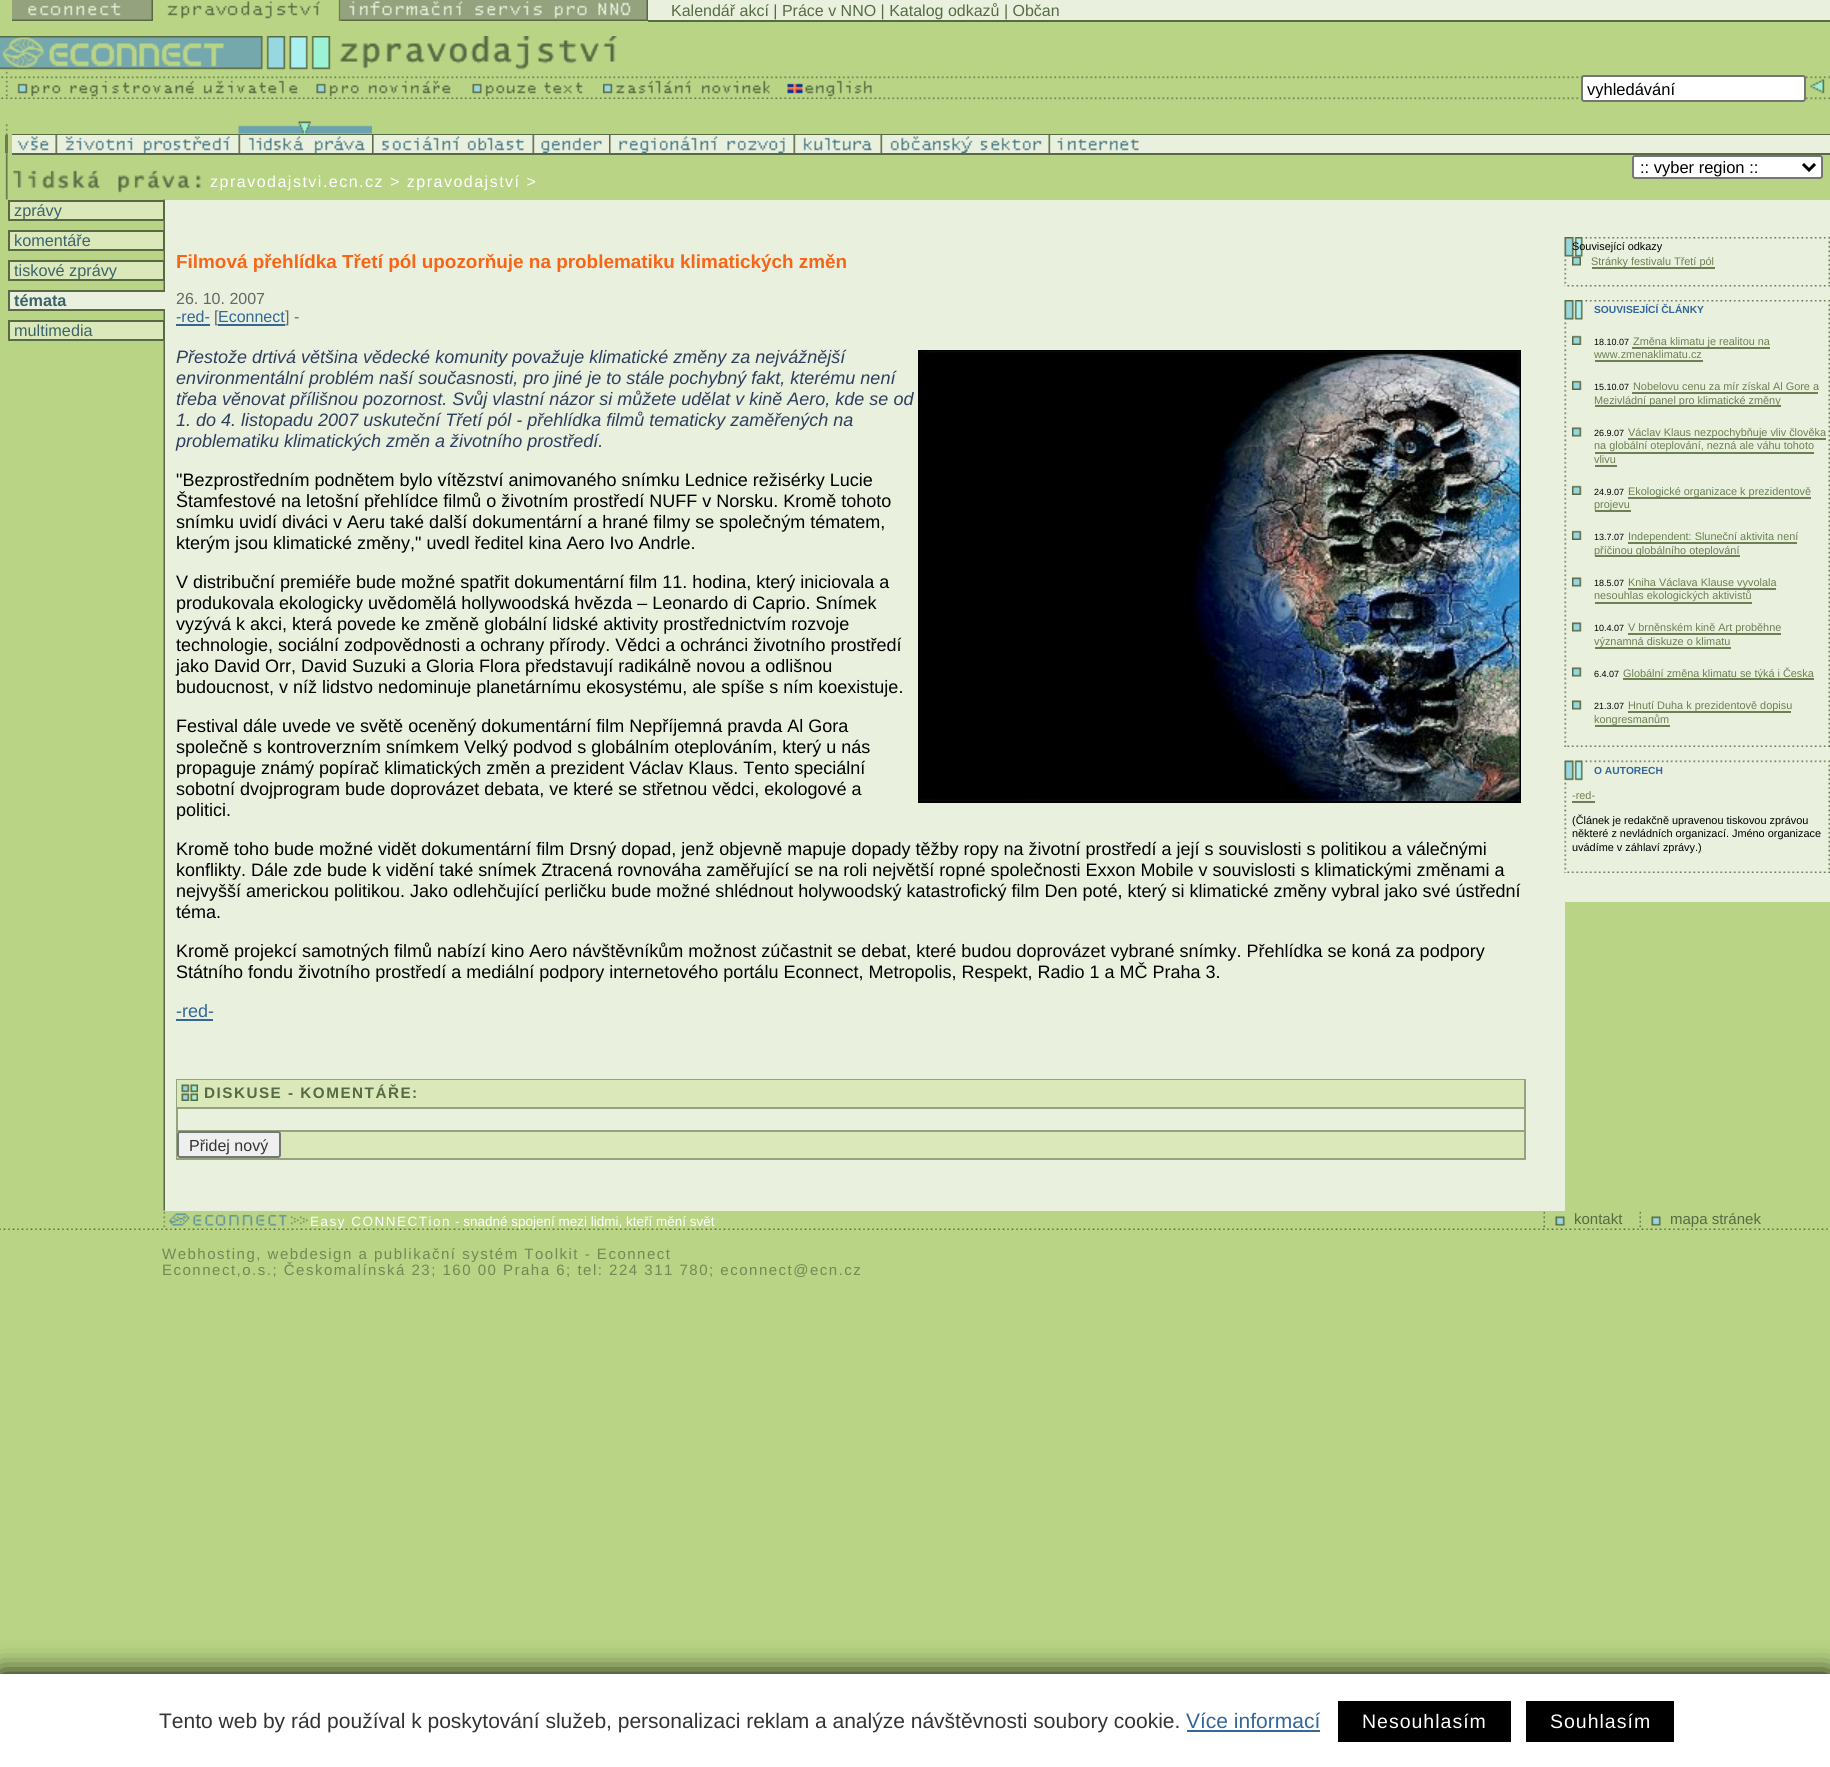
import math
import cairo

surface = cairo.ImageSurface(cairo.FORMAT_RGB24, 1830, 1767)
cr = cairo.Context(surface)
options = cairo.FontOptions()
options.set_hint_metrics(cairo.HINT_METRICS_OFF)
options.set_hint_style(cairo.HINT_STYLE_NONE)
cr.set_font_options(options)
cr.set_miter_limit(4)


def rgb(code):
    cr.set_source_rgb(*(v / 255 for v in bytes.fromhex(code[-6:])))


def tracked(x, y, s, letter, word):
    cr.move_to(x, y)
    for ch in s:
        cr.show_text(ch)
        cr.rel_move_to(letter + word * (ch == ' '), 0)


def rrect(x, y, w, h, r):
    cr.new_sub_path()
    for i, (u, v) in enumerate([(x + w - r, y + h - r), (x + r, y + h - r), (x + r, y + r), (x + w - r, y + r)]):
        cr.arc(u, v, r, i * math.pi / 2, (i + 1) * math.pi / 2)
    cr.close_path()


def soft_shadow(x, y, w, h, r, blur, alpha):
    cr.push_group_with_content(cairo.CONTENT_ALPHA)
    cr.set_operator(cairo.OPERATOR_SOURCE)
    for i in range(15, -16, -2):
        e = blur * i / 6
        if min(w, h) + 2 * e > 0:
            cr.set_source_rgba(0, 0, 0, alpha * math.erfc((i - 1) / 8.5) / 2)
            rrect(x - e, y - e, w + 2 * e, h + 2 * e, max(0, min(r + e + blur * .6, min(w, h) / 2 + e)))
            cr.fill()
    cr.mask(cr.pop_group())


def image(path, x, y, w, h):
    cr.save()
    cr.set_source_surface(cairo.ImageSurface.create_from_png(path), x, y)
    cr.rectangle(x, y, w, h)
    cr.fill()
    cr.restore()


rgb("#b9d484")
cr.paint()
image("img/1.png", 12, 0, 141, 21)
image("img/2.png", 167, 0, 174, 21)
image("img/3.png", 340, 0, 308, 21)
rgb("#e9f0dd")
cr.rectangle(648, 0, 1182, 20)
cr.fill()
rgb("#586a44")
cr.rectangle(648, 20, 1182, 2)
cr.fill()
image("img/4.png", 0, 36, 331, 38)
image("img/5.png", 340, 36, 277, 34)
image("img/6.png", 1, 76, 313, 23)
image("img/7.png", 316, 76, 156, 23)
image("img/8.png", 472, 76, 130, 23)
image("img/9.png", 603, 76, 184, 23)
image("img/11.png", 880, 76, 950, 24)
image("img/10.png", 787, 76, 94, 23)
rgb("#ffffff")
rrect(1582, 76, 223, 25, 2)
cr.fill_preserve()
rgb("#767676")
cr.stroke()
image("img/12.png", 1810, 79, 15, 15)
image("img/13.png", 5, 124, 3, 7)
image("img/14.png", 238, 121, 134, 13)
image("img/15.png", 5, 133, 3, 2)
for x, y, w, h, color in [
    (12, 134, 1818, 1, "#586a44"),
    (5, 135, 3, 18, "#6c7e50"),
    (12, 135, 1818, 18, "#e9f0dd"),
]:
    rgb(color)
    cr.rectangle(x, y, w, h)
    cr.fill()
image("img/16.png", 17, 136, 32, 15)
image("img/17.png", 55, 135, 175, 18)
image("img/18.png", 238, 135, 127, 18)
image("img/19.png", 372, 135, 152, 18)
image("img/20.png", 532, 135, 70, 18)
image("img/21.png", 609, 135, 176, 18)
image("img/22.png", 793, 135, 79, 18)
image("img/23.png", 880, 135, 162, 18)
image("img/24.png", 1048, 135, 91, 18)
image("img/25.png", 5, 153, 3, 2)
rgb("#586a44")
cr.rectangle(12, 153, 1818, 2)
cr.fill()
image("img/27.png", 163, 199, 2, 1012)
image("img/26.png", 5, 154, 197, 46)
rgb("#ffffff")
rrect(1633, 156, 189, 22, 2)
cr.fill_preserve()
rgb("#767676")
cr.stroke()
cr.new_path()
cr.move_to(1803, 164)
cr.line_to(1809, 170)
cr.line_to(1815, 164)
rgb("#000000")
cr.set_line_width(3)
cr.stroke()
rgb("#dbe9ba")
cr.rectangle(9, 201, 155, 19)
cr.fill_preserve()
rgb("#586a44")
cr.set_line_width(2)
cr.stroke()
rgb("#dbe9ba")
cr.rectangle(9, 231, 155, 19)
cr.fill_preserve()
rgb("#586a44")
cr.stroke()
rgb("#dbe9ba")
cr.rectangle(9, 261, 155, 19)
cr.fill_preserve()
rgb("#586a44")
cr.stroke()
for x, y, w, h, color in [
    (10, 292, 155, 17, "#e9f0dd"),
    (8, 290, 157, 2, "#586a44"),
    (8, 309, 157, 2, "#586a44"),
    (8, 290, 2, 21, "#586a44"),
]:
    rgb(color)
    cr.rectangle(x, y, w, h)
    cr.fill()
rgb("#dbe9ba")
cr.rectangle(9, 321, 155, 19)
cr.fill_preserve()
rgb("#586a44")
cr.stroke()
rgb("#e9f0dd")
cr.rectangle(165, 200, 1400, 1011)
cr.fill()
rgb("#336699")
cr.rectangle(176, 324, 34, 2)
cr.fill()
cr.rectangle(919, 351, 601, 451)
rgb("#000000")
cr.stroke()
image("img/28.png", 920, 351, 600, 450)
rgb("#336699")
cr.rectangle(176, 1019, 37, 2)
cr.fill()
cr.rectangle(177, 1080, 1348, 79)
rgb("#94a37e")
cr.stroke()
rgb("#dbe9ba")
cr.rectangle(177, 1080, 1347, 27)
cr.fill()
image("img/29.png", 181, 1084, 17, 17)
for x, y, w, h, color in [
    (177, 1107, 1347, 2, "#94a37e"),
    (177, 1132, 1347, 26, "#dbe9ba"),
    (177, 1130, 1347, 2, "#94a37e"),
]:
    rgb(color)
    cr.rectangle(x, y, w, h)
    cr.fill()
rgb("#efefef")
rrect(178, 1132, 102, 25, 2)
cr.fill_preserve()
rgb("#767676")
cr.stroke()
rgb("#e9f0dd")
cr.rectangle(1565, 200, 265, 702)
cr.fill()
image("img/30.png", 1564, 237, 266, 47)
image("img/31.png", 1564, 285, 266, 2)
image("img/32.png", 1572, 256, 9, 10)
rgb("#6d7f53")
cr.rectangle(1592, 267, 123, 2)
cr.fill()
image("img/33.png", 1564, 300, 266, 447)
image("img/34.png", 1564, 745, 266, 2)
image("img/35.png", 1572, 335, 10, 10)
cr.rectangle(1632, 347, 138, 2)
cr.fill()
cr.rectangle(1595, 360, 108, 2)
cr.fill()
image("img/35.png", 1572, 380, 10, 10)
cr.rectangle(1632, 392, 186, 2)
cr.fill()
cr.rectangle(1595, 405, 186, 2)
cr.fill()
image("img/36.png", 1572, 427, 10, 10)
for x, y, w, h, color in [
    (1628, 438, 198, 2, "#6d7f53"),
    (1595, 452, 219, 2, "#6d7f53"),
    (1595, 465, 22, 2, "#6d7f53"),
]:
    rgb(color)
    cr.rectangle(x, y, w, h)
    cr.fill()
image("img/35.png", 1572, 485, 10, 10)
cr.rectangle(1628, 497, 183, 2)
cr.fill()
cr.rectangle(1595, 510, 36, 2)
cr.fill()
image("img/35.png", 1572, 530, 10, 10)
cr.rectangle(1628, 542, 169, 2)
cr.fill()
cr.rectangle(1595, 555, 145, 2)
cr.fill()
image("img/36.png", 1572, 577, 10, 10)
cr.rectangle(1628, 588, 148, 2)
cr.fill()
cr.rectangle(1595, 602, 157, 2)
cr.fill()
image("img/36.png", 1572, 622, 10, 10)
cr.rectangle(1628, 633, 153, 2)
cr.fill()
cr.rectangle(1595, 647, 136, 2)
cr.fill()
image("img/36.png", 1572, 667, 10, 10)
cr.rectangle(1623, 678, 191, 2)
cr.fill()
image("img/36.png", 1572, 700, 10, 10)
cr.rectangle(1628, 711, 163, 2)
cr.fill()
cr.rectangle(1595, 725, 75, 2)
cr.fill()
image("img/37.png", 1564, 760, 266, 113)
image("img/38.png", 1564, 871, 266, 2)
cr.rectangle(1572, 801, 23, 2)
cr.fill()
image("img/39.png", 0, 1228, 1828, 2)
image("img/40.png", 163, 1211, 145, 17)
image("img/41.png", 1543, 1211, 2, 16)
image("img/42.png", 1555, 1216, 10, 10)
image("img/41.png", 1639, 1211, 2, 16)
image("img/42.png", 1651, 1216, 10, 10)
rgb("#000000")
soft_shadow(0, 1674, 1830, 93, 0, 14, 1)
for x, y, w, h, color in [
    (0, 1674, 1830, 93, "#ffffff"),
    (1187, 1730, 133, 2, "#336699"),
    (1338, 1701, 173, 41, "#000000"),
    (1526, 1701, 148, 41, "#000000"),
]:
    rgb(color)
    cr.rectangle(x, y, w, h)
    cr.fill()
cr.select_font_face("Liberation Sans")
cr.set_font_size(16)
rgb("#586a44")
cr.move_to(671, 16)
cr.show_text("Kalendář akcí | Práce v NNO | Katalog odkazů | Občan")
cr.save()
cr.rectangle(1587, 80, 213, 18)
cr.clip()
cr.set_font_size(16.5)
rgb("#000000")
cr.move_to(1587, 95)
cr.show_text("vyhledávání")
cr.restore()
cr.set_font_size(16.5)
rgb("#000000")
cr.move_to(1640, 173)
cr.show_text(":: vyber region ::")
cr.set_font_size(16)
rgb("#ffffff")
tracked(210, 187, "zpravodajstvi.ecn.cz > zpravodajství >", 1.5, 0)
cr.set_font_size(16.25)
rgb("#3c636c")
for x, y, s in [
    (14, 216, "zprávy"),
    (14, 246, "komentáře"),
    (14, 276, "tiskové zprávy"),
]:
    cr.move_to(x, y)
    cr.show_text(s)
cr.select_font_face("Liberation Sans", cairo.FONT_SLANT_NORMAL, cairo.FONT_WEIGHT_BOLD)
cr.move_to(14, 306)
cr.show_text("témata")
cr.select_font_face("Liberation Sans")
cr.move_to(14, 336)
cr.show_text("multimedia")
cr.select_font_face("Liberation Sans", cairo.FONT_SLANT_NORMAL, cairo.FONT_WEIGHT_BOLD)
cr.set_font_size(18.9)
rgb("#f76617")
cr.move_to(176, 268)
cr.show_text("Filmová přehlídka Třetí pól upozorňuje na problematiku klimatických změn")
cr.select_font_face("Liberation Sans")
cr.set_font_size(16)
rgb("#666666")
cr.move_to(176, 304)
cr.show_text("26. 10. 2007")
rgb("#336699")
cr.move_to(176, 322)
cr.show_text("-red-")
rgb("#666666")
cr.move_to(214, 322)
cr.show_text("[")
rgb("#336699")
cr.rectangle(218, 324, 67, 2)
cr.fill()
cr.move_to(218, 322)
cr.show_text("Econnect")
rgb("#666666")
cr.move_to(285, 322)
cr.show_text("] -")
cr.select_font_face("Liberation Sans", cairo.FONT_SLANT_ITALIC)
cr.set_font_size(18)
rgb("#2f3d5e")
for x, y, s in [
    (176, 363, "Přestože drtivá většina vědecké komunity považuje klimatické změny za nejvážnější"),
    (176, 384, "environmentální problém naší současnosti, pro jiné je to stále pochybný fakt, kterému není"),
    (176, 405, "třeba věnovat přílišnou pozornost. Svůj vlastní názor si můžete udělat v kině Aero, kde se od"),
    (176, 426, "1. do 4. listopadu 2007 uskuteční Třetí pól - přehlídka filmů tematicky zaměřených na"),
    (176, 447, "problematiku klimatických změn a životního prostředí."),
]:
    cr.move_to(x, y)
    cr.show_text(s)
cr.select_font_face("Liberation Sans")
rgb("#000000")
for x, y, s in [
    (176, 486, "\"Bezprostředním podnětem bylo vítězství animovaného snímku Lednice režisérky Lucie"),
    (176, 507, "Štamfestové na letošní přehlídce filmů o životním prostředí NUFF v Norsku. Kromě tohoto"),
    (176, 528, "snímku uvidí diváci v Aeru také další dokumentární a hrané filmy se společným tématem,"),
    (176, 549, "kterým jsou klimatické změny,\" uvedl ředitel kina Aero Ivo Andrle."),
    (176, 588, "V distribuční premiéře bude možné spatřit dokumentární film 11. hodina, který iniciovala a"),
    (176, 609, "produkovala ekologicky uvědomělá hollywoodská hvězda – Leonardo di Caprio. Snímek"),
    (176, 630, "vyzývá k akci, která povede ke změně globální lidské aktivity prostřednictvím rozvoje"),
    (176, 651, "technologie, sociální zodpovědnosti a ochrany přírody. Vědci a ochránci životního prostředí"),
    (176, 672, "jako David Orr, David Suzuki a Gloria Flora představují radikálně novou a odlišnou"),
    (176, 693, "budoucnost, v níž lidstvo nedominuje planetárnímu ekosystému, ale spíše s ním koexistuje."),
    (176, 732, "Festival dále uvede ve světě oceněný dokumentární film Nepříjemná pravda Al Gora"),
    (176, 753, "společně s kontroverzním snímkem Velký podvod s globálním oteplováním, který u nás"),
    (176, 774, "propaguje známý popírač klimatických změn a prezident Václav Klaus. Tento speciální"),
    (176, 795, "sobotní dvojprogram bude doprovázet debata, ve které se střetnou vědci, ekologové a"),
    (176, 816, "politici."),
    (176, 855, "Kromě toho bude možné vidět dokumentární film Drsný dopad, jenž objevně mapuje dopady těžby ropy na životní prostředí a její s souvislosti s politikou a válečnými"),
    (176, 876, "konflikty. Dále zde bude k vidění také snímek Ztracená rovnováha zaměřující se na roli největší ropné společnosti Exxon Mobile v souvislosti s klimatickými změnami a"),
    (176, 897, "nejvyšší americkou politikou. Jako odlehčující perličku bude možné shlédnout holywoodský katastrofický film Den poté, který si klimatické změny vybral jako své ústřední"),
    (176, 918, "téma."),
    (176, 957, "Kromě projekcí samotných filmů nabízí kino Aero návštěvníkům možnost zúčastnit se debat, které budou doprovázet vybrané snímky. Přehlídka se koná za podpory"),
    (176, 978, "Státního fondu životního prostředí a mediální podpory internetového portálu Econnect, Metropolis, Respekt, Radio 1 a MČ Praha 3."),
]:
    cr.move_to(x, y)
    cr.show_text(s)
rgb("#336699")
cr.move_to(176, 1017)
cr.show_text("-red-")
cr.select_font_face("Liberation Sans", cairo.FONT_SLANT_NORMAL, cairo.FONT_WEIGHT_BOLD)
cr.set_font_size(15.25)
rgb("#586a44")
tracked(204, 1098, "DISKUSE - KOMENTÁŘE:", 1.5, 0)
cr.select_font_face("Liberation Sans")
cr.set_font_size(16)
rgb("#333333")
cr.move_to(189, 1151)
cr.show_text("Přidej nový")
cr.set_font_size(10.9)
rgb("#000000")
cr.move_to(1572, 250)
cr.show_text("Související odkazy")
rgb("#6d7f53")
cr.move_to(1591, 265)
cr.show_text("Stránky festivalu Třetí pól")
cr.select_font_face("Liberation Sans", cairo.FONT_SLANT_NORMAL, cairo.FONT_WEIGHT_BOLD)
cr.set_font_size(10.25)
rgb("#336699")
cr.move_to(1594, 313)
cr.show_text("SOUVISEJÍCÍ ČLÁNKY")
cr.select_font_face("Liberation Sans")
cr.set_font_size(9)
rgb("#000000")
cr.move_to(1594, 345)
cr.show_text("18.10.07")
cr.set_font_size(10.9)
rgb("#6d7f53")
cr.move_to(1633, 345)
cr.show_text("Změna klimatu je realitou na")
cr.move_to(1594, 358)
cr.show_text("www.zmenaklimatu.cz")
cr.set_font_size(9)
rgb("#000000")
cr.move_to(1594, 390)
cr.show_text("15.10.07")
cr.set_font_size(10.9)
rgb("#6d7f53")
cr.move_to(1633, 390)
cr.show_text("Nobelovu cenu za mír získal Al Gore a")
cr.move_to(1594, 404)
cr.show_text("Mezivládní panel pro klimatické změny")
cr.set_font_size(9)
rgb("#000000")
cr.move_to(1594, 436)
cr.show_text("26.9.07")
cr.set_font_size(10.9)
rgb("#6d7f53")
for x, y, s in [
    (1628, 436, "Václav Klaus nezpochybňuje vliv člověka"),
    (1594, 449, "na globální oteplování, nezná ale váhu tohoto"),
    (1594, 463, "vlivu"),
]:
    cr.move_to(x, y)
    cr.show_text(s)
cr.set_font_size(9)
rgb("#000000")
cr.move_to(1594, 495)
cr.show_text("24.9.07")
cr.set_font_size(10.9)
rgb("#6d7f53")
cr.move_to(1628, 495)
cr.show_text("Ekologické organizace k prezidentově")
cr.move_to(1594, 508)
cr.show_text("projevu")
cr.set_font_size(9)
rgb("#000000")
cr.move_to(1594, 540)
cr.show_text("13.7.07")
cr.set_font_size(10.9)
rgb("#6d7f53")
cr.move_to(1628, 540)
cr.show_text("Independent: Sluneční aktivita není")
cr.move_to(1594, 554)
cr.show_text("příčinou globálního oteplování")
cr.set_font_size(9)
rgb("#000000")
cr.move_to(1594, 586)
cr.show_text("18.5.07")
cr.set_font_size(10.9)
rgb("#6d7f53")
cr.move_to(1628, 586)
cr.show_text("Kniha Václava Klause vyvolala")
cr.move_to(1594, 599)
cr.show_text("nesouhlas ekologických aktivistů")
cr.set_font_size(9)
rgb("#000000")
cr.move_to(1594, 631)
cr.show_text("10.4.07")
cr.set_font_size(10.9)
rgb("#6d7f53")
cr.move_to(1628, 631)
cr.show_text("V brněnském kině Art proběhne")
cr.move_to(1594, 645)
cr.show_text("významná diskuze o klimatu")
cr.set_font_size(9)
rgb("#000000")
cr.move_to(1594, 677)
cr.show_text("6.4.07")
cr.set_font_size(10.9)
rgb("#6d7f53")
cr.move_to(1623, 677)
cr.show_text("Globální změna klimatu se týká i Česka")
cr.set_font_size(9)
rgb("#000000")
cr.move_to(1594, 709)
cr.show_text("21.3.07")
cr.set_font_size(10.9)
rgb("#6d7f53")
cr.move_to(1628, 709)
cr.show_text("Hnutí Duha k prezidentově dopisu")
cr.move_to(1594, 723)
cr.show_text("kongresmanům")
cr.select_font_face("Liberation Sans", cairo.FONT_SLANT_NORMAL, cairo.FONT_WEIGHT_BOLD)
cr.set_font_size(10.25)
rgb("#336699")
cr.move_to(1594, 774)
cr.show_text("O AUTORECH")
cr.select_font_face("Liberation Sans")
cr.set_font_size(10.9)
rgb("#6d7f53")
cr.move_to(1572, 799)
cr.show_text("-red-")
rgb("#000000")
for x, y, s in [
    (1572, 824, "(Článek je redakčně upravenou tiskovou zprávou"),
    (1572, 837, "některé z nevládních organizací. Jméno organizace"),
    (1572, 851, "uvádíme v záhlaví zprávy.)"),
]:
    cr.move_to(x, y)
    cr.show_text(s)
cr.set_font_size(13.5)
rgb("#ffffff")
tracked(310, 1226, "Easy CONNECTion", 1.5, 0)
cr.move_to(455, 1226)
cr.show_text("- snadné spojení mezi lidmi, kteří mění svět")
cr.set_font_size(15)
rgb("#586a44")
cr.move_to(1574, 1224)
cr.show_text("kontakt")
cr.move_to(1670, 1224)
cr.show_text("mapa stránek")
rgb("#718857")
tracked(162, 1259, "Webhosting, webdesign a publikační systém Toolkit - Econnect", 1.5, 0)
tracked(162, 1275, "Econnect,o.s.; Českomalínská 23; 160 00 Praha 6; tel: 224 311 780; econnect@ecn.cz", 1.5, 0)
cr.set_font_size(21)
rgb("#333333")
cr.move_to(159, 1728)
cr.show_text("Tento web by rád používal k poskytování služeb, personalizaci reklam a analýze návštěvnosti soubory cookie.")
rgb("#336699")
cr.move_to(1186, 1728)
cr.show_text("Více informací")
cr.set_font_size(19.5)
rgb("#ffffff")
tracked(1362, 1728, "Nesouhlasím", 1, 0)
tracked(1550, 1728, "Souhlasím", 1, 0)
surface.write_to_png("page.png")
